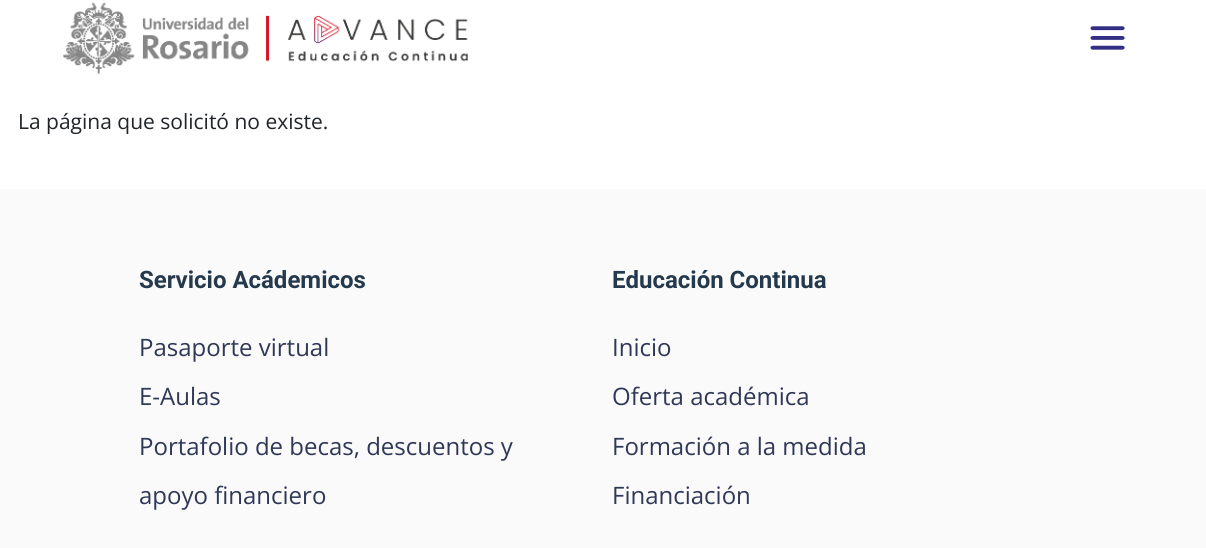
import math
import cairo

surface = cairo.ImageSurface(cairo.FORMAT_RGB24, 1206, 548)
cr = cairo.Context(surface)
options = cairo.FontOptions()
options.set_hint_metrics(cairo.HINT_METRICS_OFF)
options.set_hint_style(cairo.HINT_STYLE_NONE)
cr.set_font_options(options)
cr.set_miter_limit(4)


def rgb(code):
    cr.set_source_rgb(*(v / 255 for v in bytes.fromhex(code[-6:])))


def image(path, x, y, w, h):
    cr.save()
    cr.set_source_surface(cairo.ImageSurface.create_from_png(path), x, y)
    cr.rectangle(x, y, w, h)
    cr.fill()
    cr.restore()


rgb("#ffffff")
cr.paint()
image("img/1.png", 63, 2, 405, 72)
image("img/2.png", 1090, 26, 35, 24)
rgb("#fafafa")
cr.rectangle(0, 189, 1206, 359)
cr.fill()
cr.select_font_face("Open Sans")
cr.set_font_size(21)
rgb("#212529")
cr.move_to(18, 129)
cr.show_text("La página que solicitó no existe.")
cr.select_font_face("Roboto", cairo.FONT_SLANT_NORMAL, cairo.FONT_WEIGHT_BOLD)
cr.set_font_size(24)
rgb("#25394d")
cr.move_to(139, 288)
cr.show_text("Servicio Acádemicos")
cr.select_font_face("Open Sans")
rgb("#2f3857")
for x, y, s in [
    (139, 356, "Pasaporte virtual"),
    (139, 405, "E-Aulas"),
    (139, 455, "Portafolio de becas, descuentos y"),
    (139, 504, "apoyo financiero"),
]:
    cr.move_to(x, y)
    cr.show_text(s)
cr.select_font_face("Roboto", cairo.FONT_SLANT_NORMAL, cairo.FONT_WEIGHT_BOLD)
rgb("#25394d")
cr.move_to(612, 288)
cr.show_text("Educación Continua")
cr.select_font_face("Open Sans")
rgb("#2f3857")
for x, y, s in [
    (612, 356, "Inicio"),
    (612, 405, "Oferta académica"),
    (612, 455, "Formación a la medida"),
    (612, 504, "Financiación"),
]:
    cr.move_to(x, y)
    cr.show_text(s)
surface.write_to_png("page.png")
